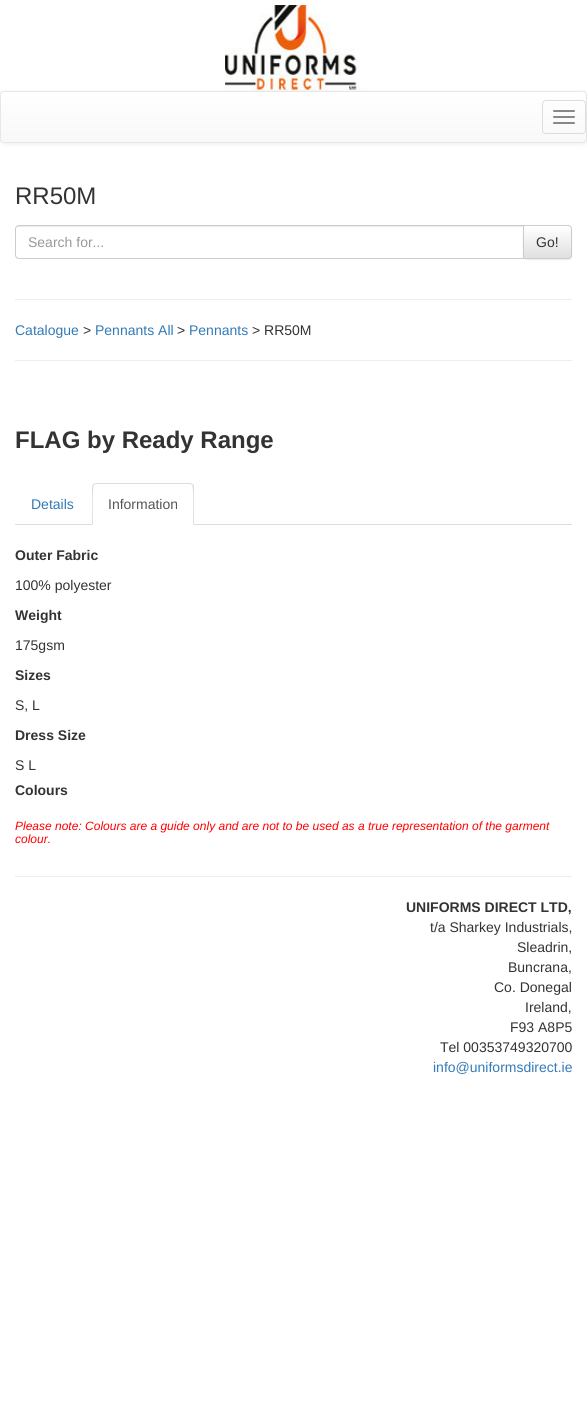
import math
import cairo

surface = cairo.ImageSurface(cairo.FORMAT_RGB24, 587, 1413)
cr = cairo.Context(surface)
options = cairo.FontOptions()
options.set_hint_metrics(cairo.HINT_METRICS_OFF)
options.set_hint_style(cairo.HINT_STYLE_NONE)
cr.set_font_options(options)
cr.set_miter_limit(4)


def rgb(code):
    cr.set_source_rgb(*(v / 255 for v in bytes.fromhex(code[-6:])))


def rrect(x, y, w, h, r):
    cr.new_sub_path()
    for i, (u, v) in enumerate([(x + w - r, y + h - r), (x + r, y + h - r), (x + r, y + r), (x + w - r, y + r)]):
        cr.arc(u, v, r, i * math.pi / 2, (i + 1) * math.pi / 2)
    cr.close_path()


def soft_shadow(x, y, w, h, r, blur, alpha):
    cr.push_group_with_content(cairo.CONTENT_ALPHA)
    cr.set_operator(cairo.OPERATOR_SOURCE)
    for i in range(15, -16, -2):
        e = blur * i / 6
        if min(w, h) + 2 * e > 0:
            cr.set_source_rgba(0, 0, 0, alpha * math.erfc((i - 1) / 8.5) / 2)
            rrect(x - e, y - e, w + 2 * e, h + 2 * e, max(0, min(r + e + blur * .6, min(w, h) / 2 + e)))
            cr.fill()
    cr.mask(cr.pop_group())


def image(path, x, y, w, h):
    cr.save()
    cr.set_source_surface(cairo.ImageSurface.create_from_png(path), x, y)
    cr.rectangle(x, y, w, h)
    cr.fill()
    cr.restore()


rgb("#ffffff")
cr.paint()
image("img/1.png", 225, 5, 136, 86)
rgb("#000000")
soft_shadow(0, 92, 587, 52, 4, 2.5, 0.07)
cr.save()
rrect(0, 91, 587, 52, 4)
cr.clip()
gradient = cairo.LinearGradient(294, 92, 294, 142)
gradient.add_color_stop_rgba(0, 1, 1, 1, 1)
gradient.add_color_stop_rgba(1, 0.973, 0.973, 0.973, 1)
cr.set_source(gradient)
cr.rectangle(0, 92, 587, 50)
cr.fill()
cr.restore()
rrect(0.5, 91.5, 586, 51, 3.5)
rgb("#e7e7e7")
cr.set_line_width(1)
cr.stroke()
rrect(542.5, 100.5, 43, 33, 3.5)
rgb("#dddddd")
cr.stroke()
rgb("#888888")
rrect(553, 110, 22, 2, 1)
cr.fill()
rrect(553, 116, 22, 2, 1)
cr.fill()
rrect(553, 122, 22, 2, 1)
cr.fill()
rgb("#ececec")
cr.new_path()
cr.move_to(19, 227)
cr.line_to(523, 227)
cr.line_to(523, 226)
cr.line_to(19, 226)
cr.curve_to(17, 226, 16, 228, 16, 230)
cr.curve_to(16, 228, 17, 227, 19, 227)
cr.close_path()
cr.fill()
cr.new_path()
cr.move_to(19, 225.5)
cr.line_to(523.5, 225.5)
cr.line_to(523.5, 258.5)
cr.line_to(19, 258.5)
cr.curve_to(17, 258.5, 15.5, 257, 15.5, 255)
cr.line_to(15.5, 229)
cr.curve_to(15.5, 227, 17, 225.5, 19, 225.5)
cr.close_path()
rgb("#cccccc")
cr.stroke()
rgb("#000000")
soft_shadow(523, 226, 49, 34, 4, 0.5, 0.07)
cr.save()
cr.new_path()
cr.move_to(523, 225)
cr.line_to(568, 225)
cr.curve_to(570, 225, 572, 227, 572, 229)
cr.line_to(572, 255)
cr.curve_to(572, 257, 570, 259, 568, 259)
cr.line_to(523, 259)
cr.close_path()
cr.clip()
gradient = cairo.LinearGradient(548, 226, 548, 258)
gradient.add_color_stop_rgba(0, 1, 1, 1, 1)
gradient.add_color_stop_rgba(1, 0.878, 0.878, 0.878, 1)
cr.set_source(gradient)
cr.rectangle(524, 226, 48, 32)
cr.fill()
cr.restore()
cr.new_path()
cr.move_to(523.5, 225.5)
cr.line_to(568, 225.5)
cr.curve_to(570, 225.5, 571.5, 227, 571.5, 229)
cr.line_to(571.5, 255)
cr.curve_to(571.5, 257, 570, 258.5, 568, 258.5)
cr.line_to(523.5, 258.5)
cr.close_path()
rgb("#cccccc")
cr.stroke()
for x, y, w, h, color in [
    (15, 299, 557, 1, "#eeeeee"),
    (15, 360, 557, 1, "#eeeeee"),
    (15, 524, 557, 1, "#dddddd"),
]:
    rgb(color)
    cr.rectangle(x, y, w, h)
    cr.fill()
rgb("#ffffff")
cr.new_path()
cr.move_to(96, 483)
cr.line_to(190, 483)
cr.curve_to(192, 483, 194, 485, 194, 487)
cr.line_to(194, 525)
cr.line_to(92, 525)
cr.line_to(92, 487)
cr.curve_to(92, 485, 94, 483, 96, 483)
cr.close_path()
cr.fill()
rgb("#dddddd")
cr.new_path()
cr.move_to(96, 483)
cr.line_to(93, 484)
cr.line_to(94, 485)
cr.line_to(96, 484)
cr.line_to(190, 484)
cr.line_to(192, 485)
cr.line_to(193, 484)
cr.line_to(190, 483)
cr.close_path()
cr.fill()
cr.new_path()
cr.move_to(194, 525)
cr.line_to(194, 487)
cr.curve_to(194, 486, 194, 485, 193, 484)
cr.line_to(192, 485)
cr.curve_to(194, 487, 193, 519, 193, 524)
cr.close_path()
cr.fill()
cr.new_path()
cr.move_to(92, 525)
cr.line_to(93, 524)
cr.curve_to(93, 519, 92, 487, 94, 485)
cr.line_to(93, 484)
cr.line_to(92, 487)
cr.close_path()
cr.fill()
rgb("#eeeeee")
cr.rectangle(15, 876, 557, 1)
cr.fill()
cr.select_font_face("Liberation Sans")
cr.set_font_size(24)
rgb("#333333")
cr.move_to(15, 204)
cr.show_text("RR50M")
cr.set_font_size(14)
rgb("#999999")
cr.move_to(28, 247)
cr.show_text("Search for...")
rgb("#333333")
cr.move_to(536, 247)
cr.show_text("Go!")
rgb("#337ab7")
cr.move_to(15, 335)
cr.show_text("Catalogue")
rgb("#333333")
cr.move_to(83, 335)
cr.show_text(">")
rgb("#337ab7")
cr.move_to(95, 335)
cr.show_text("Pennants All")
rgb("#333333")
cr.move_to(177, 335)
cr.show_text(">")
rgb("#337ab7")
cr.move_to(189, 335)
cr.show_text("Pennants")
rgb("#333333")
cr.move_to(252, 335)
cr.show_text("> RR50M")
cr.select_font_face("Liberation Sans", cairo.FONT_SLANT_NORMAL, cairo.FONT_WEIGHT_BOLD)
cr.set_font_size(24)
cr.move_to(15, 448)
cr.show_text("FLAG by Ready Range")
cr.select_font_face("Liberation Sans")
cr.set_font_size(14)
rgb("#337ab7")
cr.move_to(31, 509)
cr.show_text("Details")
rgb("#555555")
cr.move_to(108, 509)
cr.show_text("Information")
cr.select_font_face("Liberation Sans", cairo.FONT_SLANT_NORMAL, cairo.FONT_WEIGHT_BOLD)
rgb("#333333")
cr.move_to(15, 560)
cr.show_text("Outer Fabric")
cr.select_font_face("Liberation Sans")
cr.move_to(15, 590)
cr.show_text("100% polyester")
cr.select_font_face("Liberation Sans", cairo.FONT_SLANT_NORMAL, cairo.FONT_WEIGHT_BOLD)
cr.move_to(15, 620)
cr.show_text("Weight")
cr.select_font_face("Liberation Sans")
cr.move_to(15, 650)
cr.show_text("175gsm")
cr.select_font_face("Liberation Sans", cairo.FONT_SLANT_NORMAL, cairo.FONT_WEIGHT_BOLD)
cr.move_to(15, 680)
cr.show_text("Sizes")
cr.select_font_face("Liberation Sans")
cr.move_to(15, 710)
cr.show_text("S, L")
cr.select_font_face("Liberation Sans", cairo.FONT_SLANT_NORMAL, cairo.FONT_WEIGHT_BOLD)
cr.move_to(15, 740)
cr.show_text("Dress Size")
cr.select_font_face("Liberation Sans")
cr.move_to(15, 770)
cr.show_text("S L")
cr.select_font_face("Liberation Sans", cairo.FONT_SLANT_NORMAL, cairo.FONT_WEIGHT_BOLD)
cr.move_to(15, 795)
cr.show_text("Colours")
cr.select_font_face("Liberation Sans", cairo.FONT_SLANT_ITALIC)
cr.set_font_size(12)
rgb("#ff0000")
cr.move_to(15, 830)
cr.show_text("Please note: Colours are a guide only and are not to be used as a true representation of the garment")
cr.move_to(15, 843)
cr.show_text("colour.")
cr.select_font_face("Liberation Sans", cairo.FONT_SLANT_NORMAL, cairo.FONT_WEIGHT_BOLD)
cr.set_font_size(14)
rgb("#333333")
cr.move_to(406, 912)
cr.show_text("UNIFORMS DIRECT LTD,")
cr.select_font_face("Liberation Sans")
for x, y, s in [
    (430, 932, "t/a Sharkey Industrials,"),
    (517, 952, "Sleadrin,"),
    (508, 972, "Buncrana,"),
    (494, 992, "Co. Donegal"),
    (525, 1012, "Ireland,"),
    (510, 1032, "F93 A8P5"),
    (440, 1052, "Tel 00353749320700"),
]:
    cr.move_to(x, y)
    cr.show_text(s)
rgb("#337ab7")
cr.move_to(433, 1072)
cr.show_text("info@uniformsdirect.ie")
surface.write_to_png("page.png")
